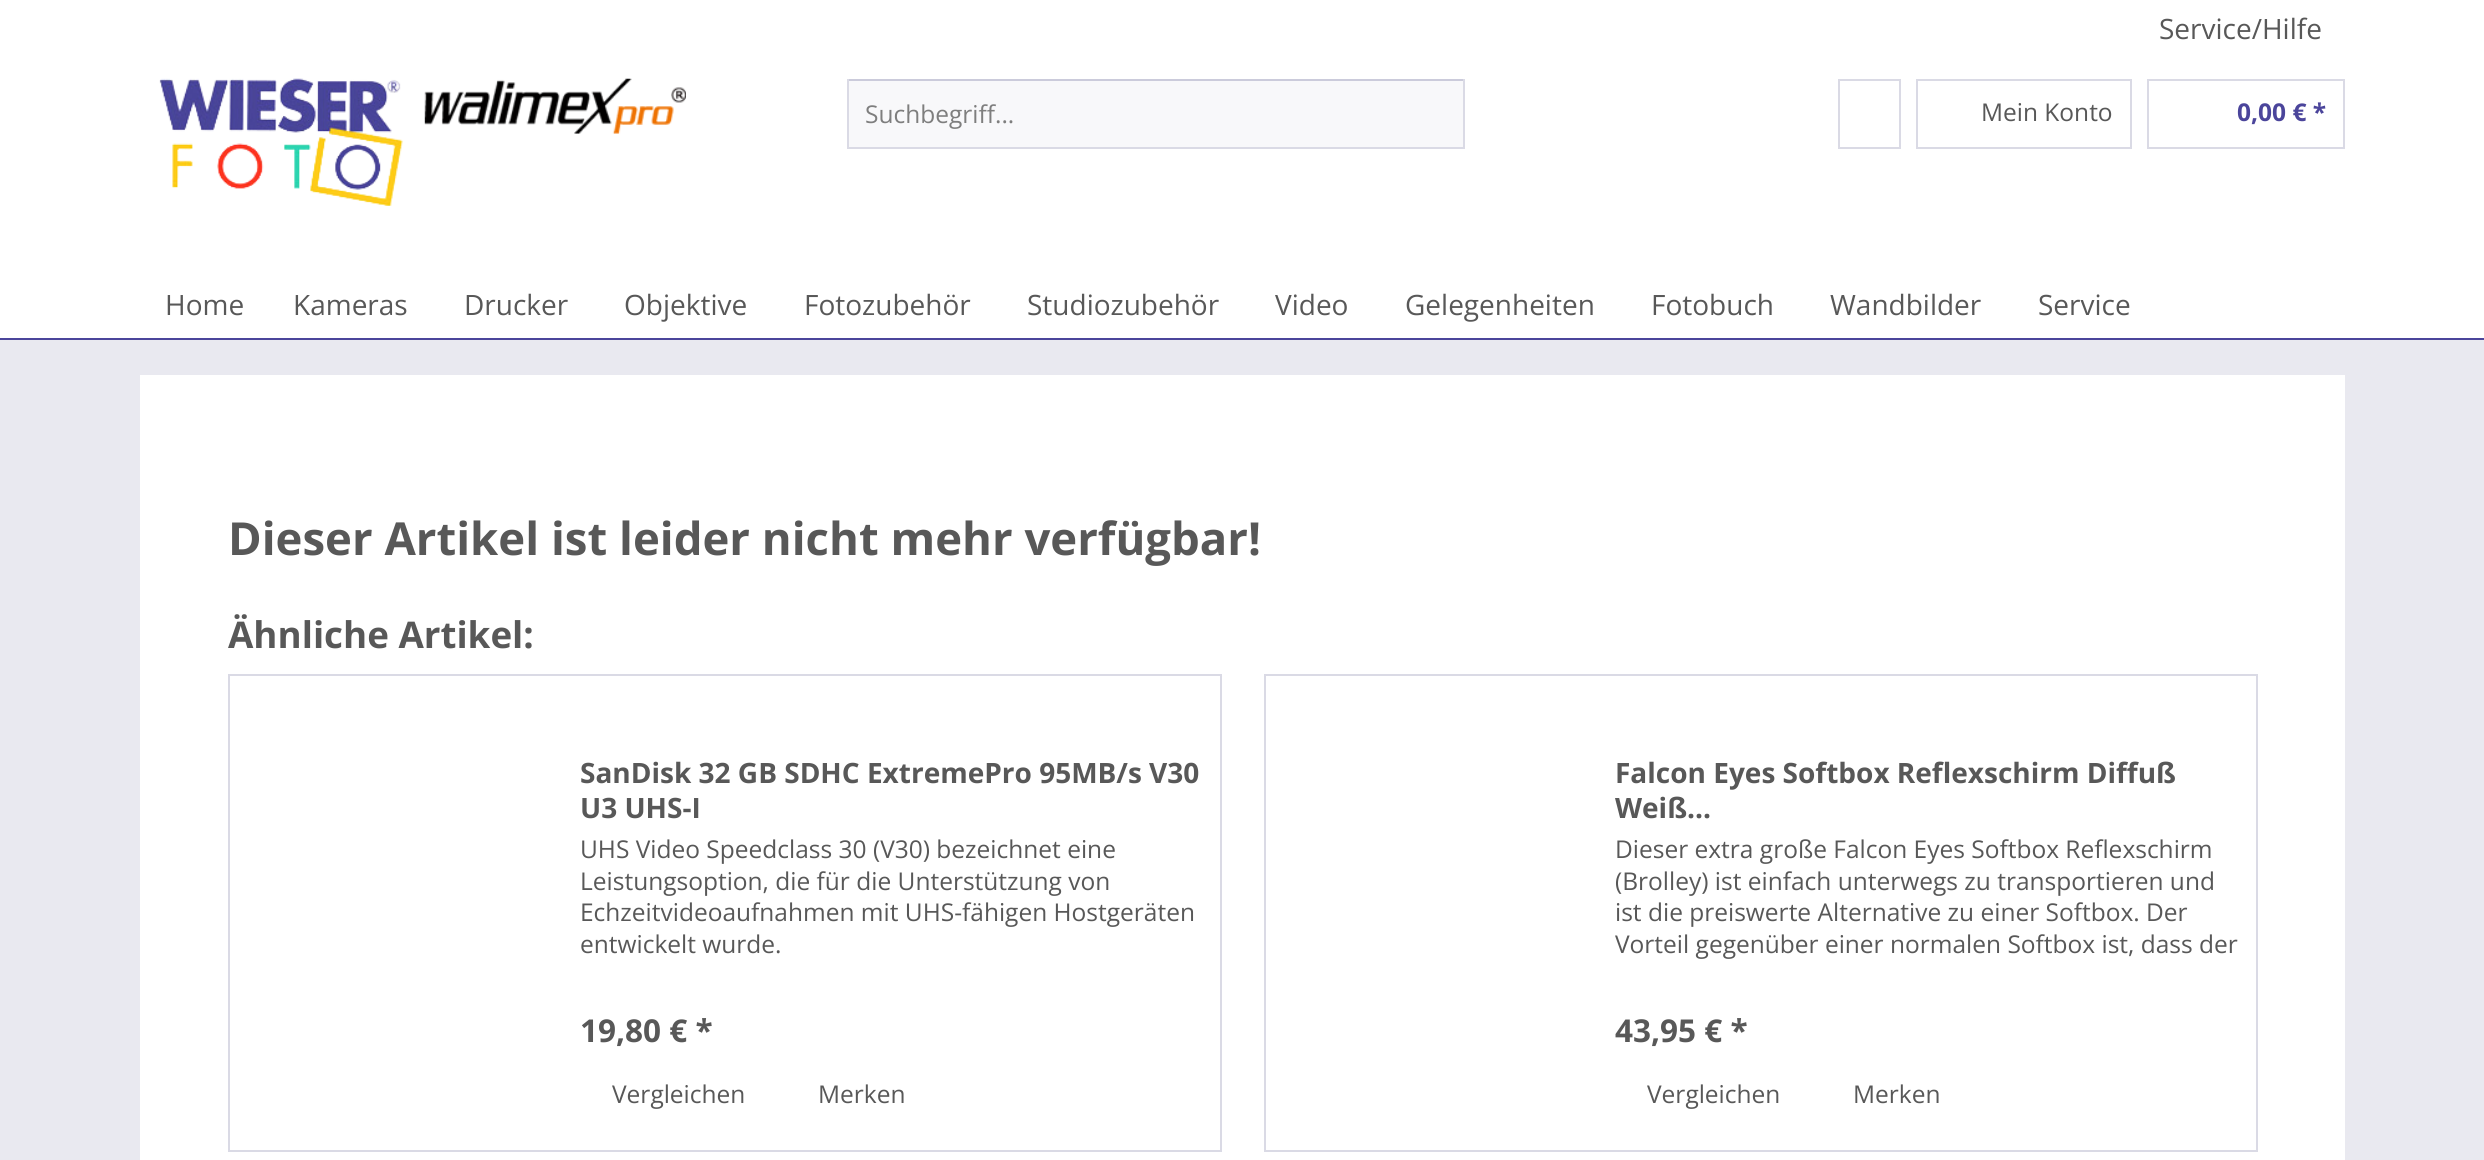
import math
import cairo

surface = cairo.ImageSurface(cairo.FORMAT_RGB24, 2484, 1160)
cr = cairo.Context(surface)
options = cairo.FontOptions()
options.set_hint_metrics(cairo.HINT_METRICS_OFF)
options.set_hint_style(cairo.HINT_STYLE_NONE)
cr.set_font_options(options)
cr.set_miter_limit(4)


def rgb(code):
    cr.set_source_rgb(*(v / 255 for v in bytes.fromhex(code[-6:])))


def image(path, x, y, w, h):
    cr.save()
    cr.set_source_surface(cairo.ImageSurface.create_from_png(path), x, y)
    cr.rectangle(x, y, w, h)
    cr.fill()
    cr.restore()


rgb("#e9e9f0")
cr.paint()
rgb("#ffffff")
cr.rectangle(0, 0, 2484, 338)
cr.fill()
image("img/1.png", 159, 78, 527, 128)
for x, y, w, h, color in [
    (849, 81, 614, 66, "#f8f8fa"),
    (847, 79, 618, 2, "#cbcbdb"),
    (1463, 79, 2, 70, "#dadae5"),
    (847, 147, 618, 2, "#dadae5"),
    (847, 79, 2, 70, "#dadae5"),
]:
    rgb(color)
    cr.rectangle(x, y, w, h)
    cr.fill()
cr.rectangle(1839, 80, 61, 68)
cr.stroke()
cr.rectangle(1917, 80, 214, 68)
cr.stroke()
cr.rectangle(2148, 80, 196, 68)
cr.stroke()
rgb("#4b459b")
cr.rectangle(0, 338, 2484, 2)
cr.fill()
rgb("#ffffff")
cr.rectangle(140, 375, 2205, 785)
cr.fill()
cr.rectangle(229, 675, 992, 476)
rgb("#dadae5")
cr.stroke()
cr.rectangle(1265, 675, 992, 476)
cr.stroke()
cr.select_font_face("Open Sans")
cr.set_font_size(28)
rgb("#585858")
cr.move_to(2159, 39)
cr.show_text("Service/Hilfe")
cr.set_font_size(24.5)
rgb("#7e7e7e")
cr.move_to(865, 123)
cr.show_text("Suchbegriff...")
rgb("#585858")
cr.move_to(1981, 121)
cr.show_text("Mein Konto")
cr.select_font_face("Open Sans", cairo.FONT_SLANT_NORMAL, cairo.FONT_WEIGHT_BOLD)
rgb("#4b459b")
cr.move_to(2237, 121)
cr.show_text("0,00 € *")
cr.select_font_face("Open Sans")
cr.set_font_size(28)
rgb("#585858")
for x, y, s in [
    (165, 315, "Home"),
    (293, 315, "Kameras"),
    (464, 315, "Drucker"),
    (624, 315, "Objektive"),
    (804, 315, "Fotozubehör"),
    (1027, 315, "Studiozubehör"),
    (1275, 315, "Video"),
    (1405, 315, "Gelegenheiten"),
    (1651, 315, "Fotobuch"),
    (1830, 315, "Wandbilder"),
    (2038, 315, "Service"),
]:
    cr.move_to(x, y)
    cr.show_text(s)
cr.select_font_face("Open Sans", cairo.FONT_SLANT_NORMAL, cairo.FONT_WEIGHT_BOLD)
cr.set_font_size(45.5)
cr.move_to(228, 555)
cr.show_text("Dieser Artikel ist leider nicht mehr verfügbar!")
cr.set_font_size(36.75)
cr.move_to(228, 648)
cr.show_text("Ähnliche Artikel:")
cr.set_font_size(28)
cr.move_to(580, 783)
cr.show_text("SanDisk 32 GB SDHC ExtremePro 95MB/s V30")
cr.move_to(580, 818)
cr.show_text("U3 UHS-I")
cr.select_font_face("Open Sans")
cr.set_font_size(24.5)
for x, y, s in [
    (580, 858, "UHS Video Speedclass 30 (V30) bezeichnet eine"),
    (580, 890, "Leistungsoption, die für die Unterstützung von"),
    (580, 921, "Echzeitvideoaufnahmen mit UHS-fähigen Hostgeräten"),
    (580, 953, "entwickelt wurde."),
]:
    cr.move_to(x, y)
    cr.show_text(s)
cr.select_font_face("Open Sans", cairo.FONT_SLANT_NORMAL, cairo.FONT_WEIGHT_BOLD)
cr.set_font_size(31.5)
cr.move_to(580, 1042)
cr.show_text("19,80 € *")
cr.select_font_face("Open Sans")
cr.set_font_size(24.5)
cr.move_to(612, 1103)
cr.show_text("Vergleichen")
cr.move_to(818, 1103)
cr.show_text("Merken")
cr.select_font_face("Open Sans", cairo.FONT_SLANT_NORMAL, cairo.FONT_WEIGHT_BOLD)
cr.set_font_size(28)
cr.move_to(1615, 783)
cr.show_text("Falcon Eyes Softbox Reflexschirm Diffuß")
cr.move_to(1615, 818)
cr.show_text("Weiß...")
cr.select_font_face("Open Sans")
cr.set_font_size(24.5)
for x, y, s in [
    (1615, 858, "Dieser extra große Falcon Eyes Softbox Reflexschirm"),
    (1615, 890, "(Brolley) ist einfach unterwegs zu transportieren und"),
    (1615, 921, "ist die preiswerte Alternative zu einer Softbox. Der"),
    (1615, 953, "Vorteil gegenüber einer normalen Softbox ist, dass der"),
]:
    cr.move_to(x, y)
    cr.show_text(s)
cr.select_font_face("Open Sans", cairo.FONT_SLANT_NORMAL, cairo.FONT_WEIGHT_BOLD)
cr.set_font_size(31.5)
cr.move_to(1615, 1042)
cr.show_text("43,95 € *")
cr.select_font_face("Open Sans")
cr.set_font_size(24.5)
cr.move_to(1647, 1103)
cr.show_text("Vergleichen")
cr.move_to(1853, 1103)
cr.show_text("Merken")
surface.write_to_png("page.png")
